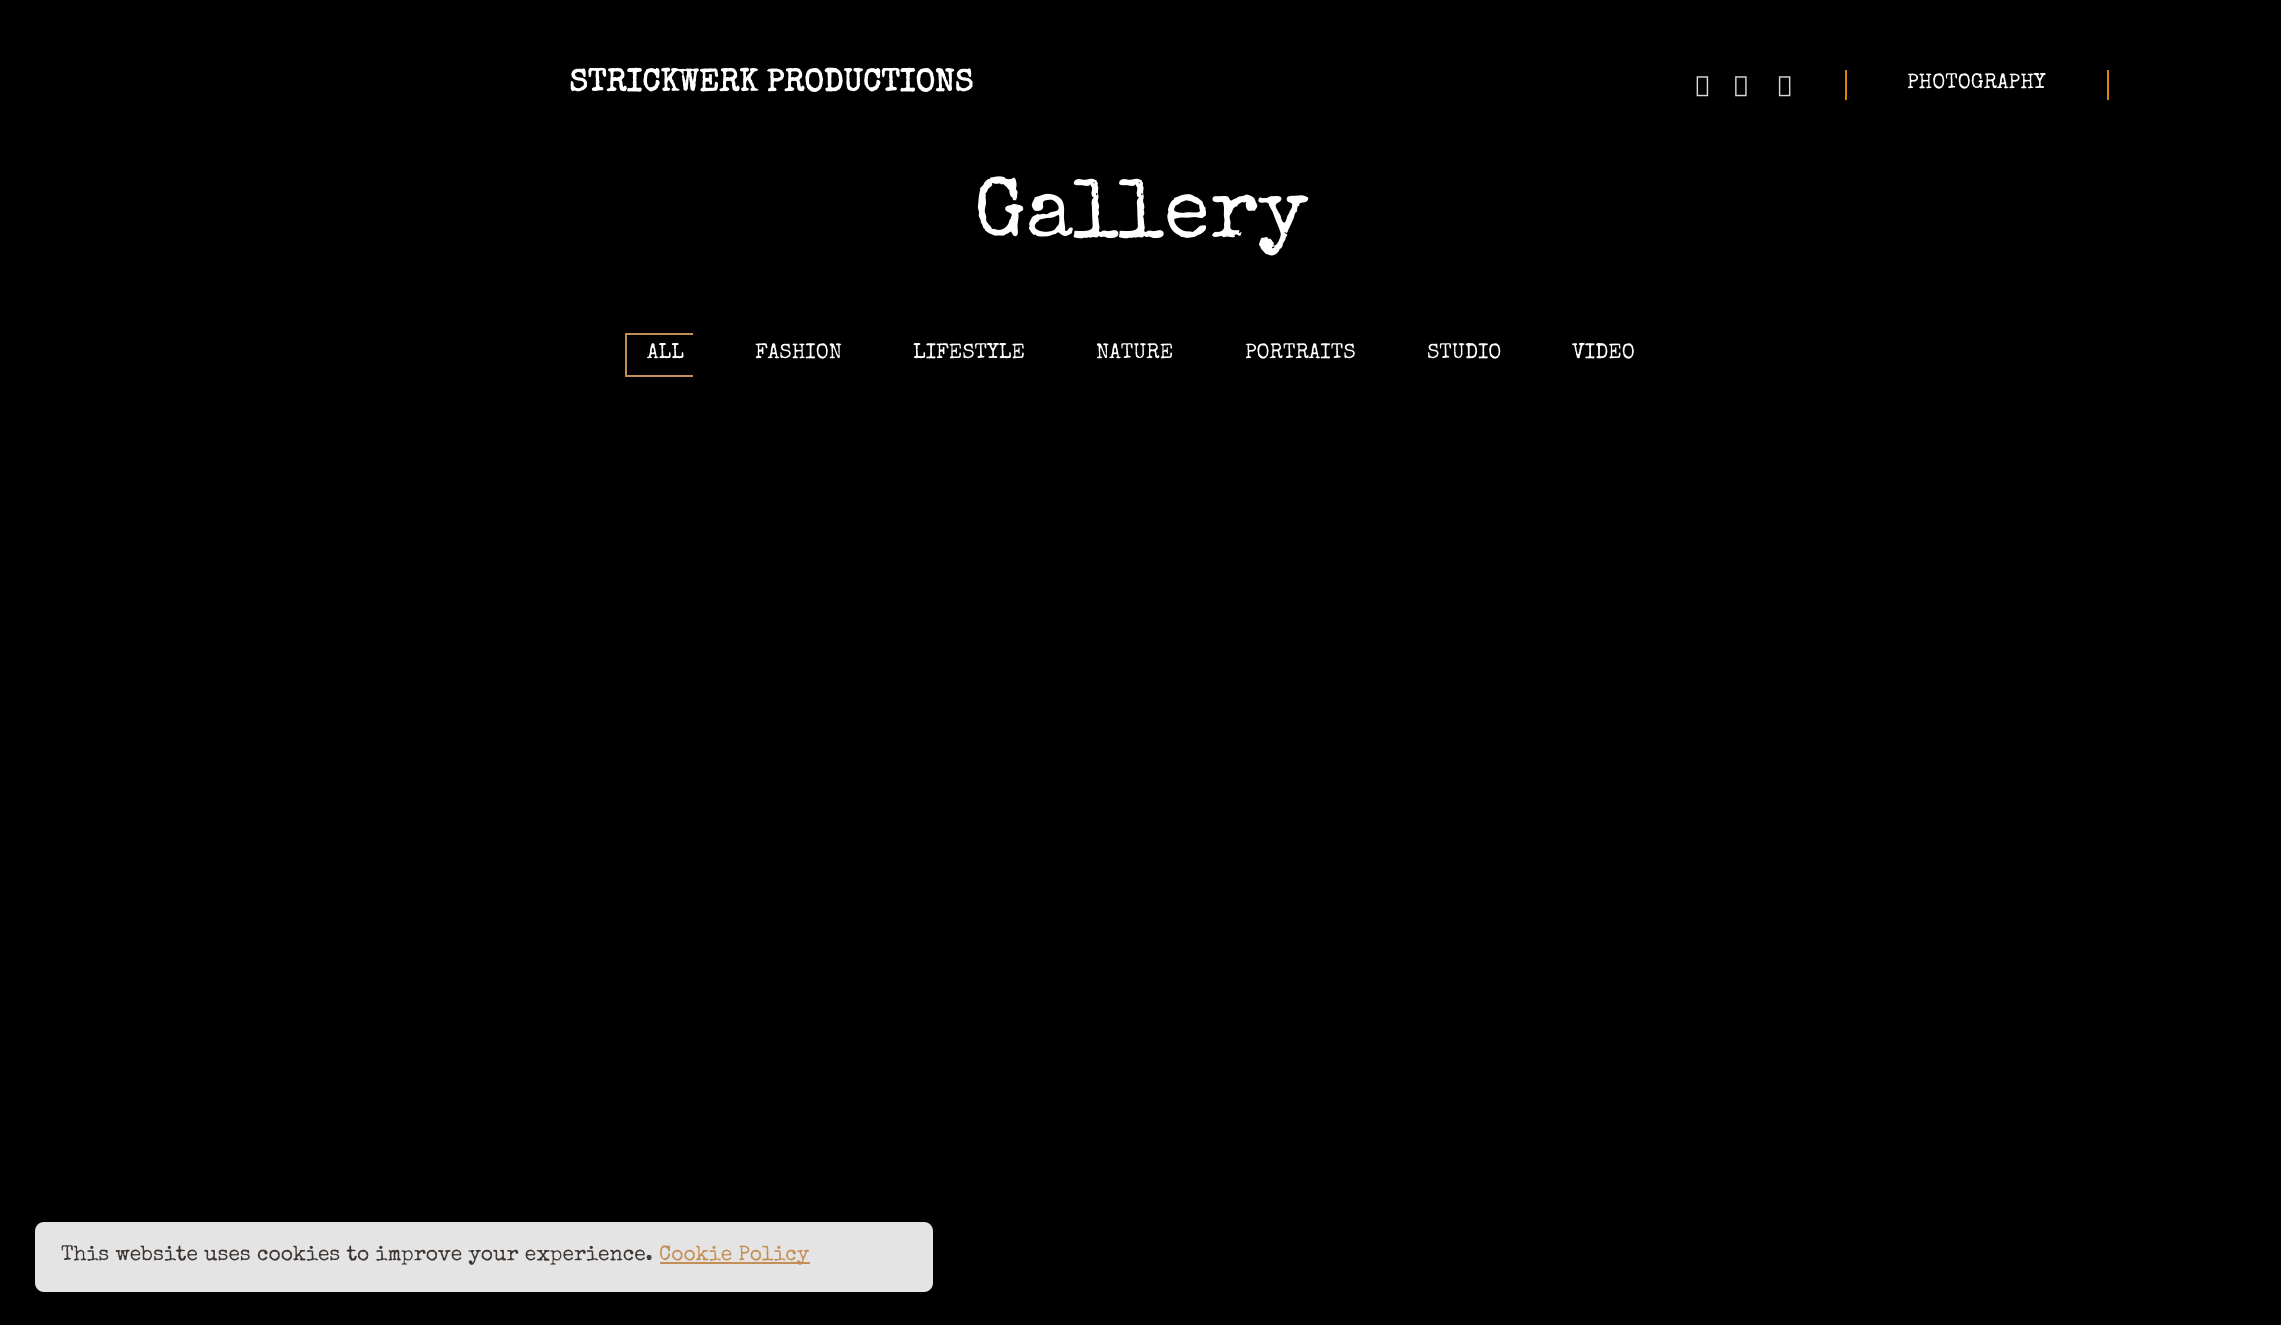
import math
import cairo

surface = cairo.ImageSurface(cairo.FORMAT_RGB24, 2281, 1325)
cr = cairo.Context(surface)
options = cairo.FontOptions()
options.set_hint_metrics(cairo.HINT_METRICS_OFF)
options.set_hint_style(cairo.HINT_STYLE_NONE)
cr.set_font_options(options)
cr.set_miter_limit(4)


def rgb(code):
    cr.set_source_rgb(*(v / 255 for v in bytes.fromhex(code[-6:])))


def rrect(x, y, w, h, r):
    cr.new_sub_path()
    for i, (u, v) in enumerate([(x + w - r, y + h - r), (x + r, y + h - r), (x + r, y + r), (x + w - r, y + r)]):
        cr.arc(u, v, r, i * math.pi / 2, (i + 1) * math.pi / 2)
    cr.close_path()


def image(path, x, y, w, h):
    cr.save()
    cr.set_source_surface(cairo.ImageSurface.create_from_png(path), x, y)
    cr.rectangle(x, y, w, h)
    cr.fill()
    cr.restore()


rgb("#000000")
cr.paint()
image("img/1.png", 1696, 76, 13, 21)
image("img/2.png", 1735, 76, 12, 21)
image("img/3.png", 1778, 76, 13, 21)
for x, y, w, h, color in [
    (1845, 70, 2, 30, "#dd8500"),
    (2107, 70, 2, 30, "#dd8500"),
    (625, 333, 68, 2, "#c48f56"),
    (625, 375, 68, 2, "#c48f56"),
    (625, 333, 2, 43, "#c48f56"),
]:
    rgb(color)
    cr.rectangle(x, y, w, h)
    cr.fill()
rgb("#e4e4e4")
rrect(35, 1222, 898, 70, 9)
cr.fill()
rgb("#c48f56")
cr.rectangle(660, 1262, 150, 2)
cr.fill()
cr.select_font_face("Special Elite", cairo.FONT_SLANT_NORMAL, cairo.FONT_WEIGHT_BOLD)
cr.set_font_size(31.5)
rgb("#ffffff")
cr.move_to(569, 91)
cr.show_text("STRICKWERK PRODUCTIONS")
cr.select_font_face("Special Elite")
cr.set_font_size(21)
cr.move_to(1907, 88)
cr.show_text("PHOTOGRAPHY")
cr.set_font_size(84)
cr.move_to(974, 236)
cr.show_text("Gallery")
cr.set_font_size(21)
for x, y, s in [
    (647, 358, "ALL"),
    (755, 358, "FASHION"),
    (913, 358, "LIFESTYLE"),
    (1096, 358, "NATURE"),
    (1245, 358, "PORTRAITS"),
    (1427, 358, "STUDIO"),
    (1572, 358, "VIDEO"),
]:
    cr.move_to(x, y)
    cr.show_text(s)
rgb("#3c3531")
cr.move_to(61, 1260)
cr.show_text("This website uses cookies to improve your experience.")
rgb("#c48f56")
cr.move_to(659, 1260)
cr.show_text("Cookie Policy")
surface.write_to_png("page.png")
